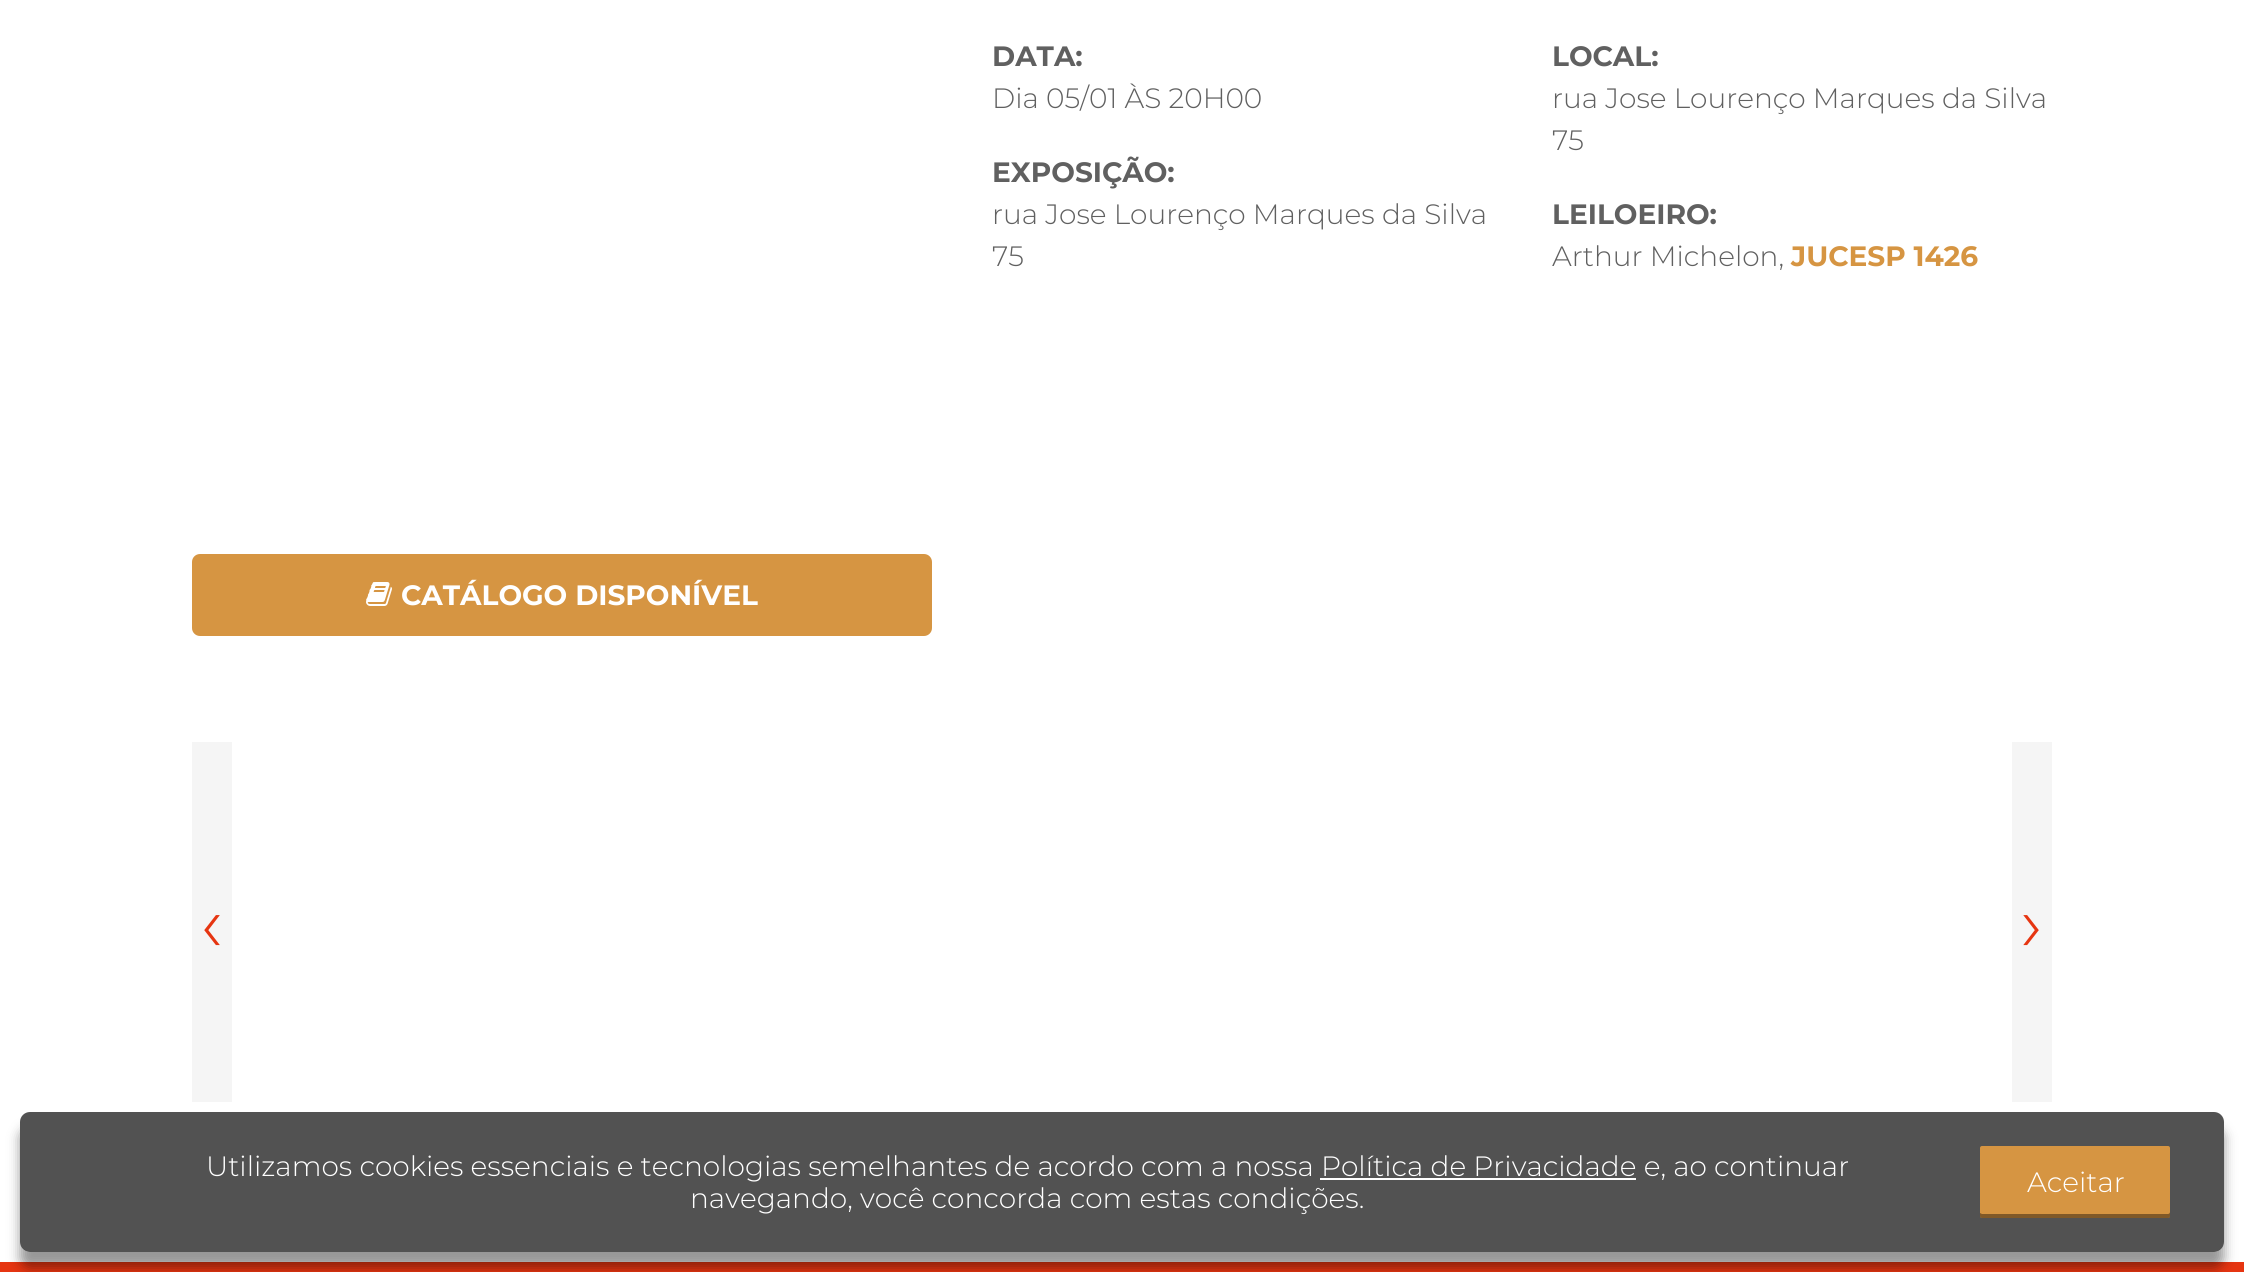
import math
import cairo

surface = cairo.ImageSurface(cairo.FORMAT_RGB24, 2244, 1272)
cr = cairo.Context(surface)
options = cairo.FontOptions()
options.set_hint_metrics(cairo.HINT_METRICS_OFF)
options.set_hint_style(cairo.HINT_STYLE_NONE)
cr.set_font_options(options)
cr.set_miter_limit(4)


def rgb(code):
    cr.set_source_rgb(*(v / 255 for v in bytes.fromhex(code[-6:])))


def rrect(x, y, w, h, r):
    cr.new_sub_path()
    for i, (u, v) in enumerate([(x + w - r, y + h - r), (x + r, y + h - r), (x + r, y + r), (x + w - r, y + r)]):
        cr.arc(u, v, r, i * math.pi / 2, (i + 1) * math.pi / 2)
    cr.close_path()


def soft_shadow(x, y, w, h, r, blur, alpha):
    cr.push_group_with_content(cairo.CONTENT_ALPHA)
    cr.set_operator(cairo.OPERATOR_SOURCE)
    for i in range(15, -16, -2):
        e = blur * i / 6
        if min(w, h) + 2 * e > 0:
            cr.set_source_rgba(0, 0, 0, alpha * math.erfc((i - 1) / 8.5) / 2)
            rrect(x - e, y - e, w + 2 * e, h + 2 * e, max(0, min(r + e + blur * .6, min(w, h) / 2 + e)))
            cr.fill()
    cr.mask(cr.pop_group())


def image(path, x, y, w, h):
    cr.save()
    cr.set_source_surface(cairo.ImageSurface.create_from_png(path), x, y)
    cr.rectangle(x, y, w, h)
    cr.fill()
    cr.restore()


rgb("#ffffff")
cr.paint()
rgb("#d69542")
rrect(192, 554, 740, 82, 8)
cr.fill()
image("img/1.png", 366, 582, 26, 24)
for x, y, w, h, color in [
    (192, 742, 40, 360, "#f5f5f5"),
    (2012, 742, 40, 360, "#f5f5f5"),
    (0, 1262, 2244, 10, "#e63511"),
]:
    rgb(color)
    cr.rectangle(x, y, w, h)
    cr.fill()
cr.save()
cr.set_fill_rule(cairo.FILL_RULE_EVEN_ODD)
cr.new_path()
cr.move_to(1, 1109)
cr.line_to(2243, 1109)
cr.line_to(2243, 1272)
cr.line_to(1, 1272)
cr.close_path()
cr.move_to(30, 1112)
cr.line_to(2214, 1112)
cr.curve_to(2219.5, 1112, 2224, 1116.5, 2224, 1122)
cr.line_to(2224, 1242)
cr.curve_to(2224, 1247.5, 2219.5, 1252, 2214, 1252)
cr.line_to(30, 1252)
cr.curve_to(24.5, 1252, 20, 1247.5, 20, 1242)
cr.line_to(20, 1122)
cr.curve_to(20, 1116.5, 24.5, 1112, 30, 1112)
cr.close_path()
cr.clip()
rgb("#000000")
soft_shadow(20, 1128, 2204, 140, 10, 6, 0.41)
cr.restore()
cr.set_source_rgba(0.251, 0.251, 0.251, 0.9)
rrect(20, 1112, 2204, 140, 10)
cr.fill()
rgb("#ffffff")
cr.rectangle(1320, 1178, 316, 2)
cr.fill()
rgb("#d69542")
rrect(1980, 1146, 190, 72, 2)
cr.fill()
cr.set_source_rgba(0, 0, 0, 0.4)
cr.new_path()
cr.move_to(1980, 1212)
cr.line_to(1980, 1216)
cr.curve_to(1980, 1217, 1981, 1218, 1982, 1218)
cr.line_to(2168, 1218)
cr.curve_to(2169, 1218, 2170, 1217, 2170, 1216)
cr.line_to(2170, 1212)
cr.curve_to(2170, 1213, 2169, 1214, 2168, 1214)
cr.line_to(1982, 1214)
cr.line_to(1980, 1213)
cr.close_path()
cr.fill()
cr.select_font_face("Montserrat", cairo.FONT_SLANT_NORMAL, cairo.FONT_WEIGHT_BOLD)
cr.set_font_size(28)
rgb("#606060")
cr.move_to(992, 66)
cr.show_text("DATA:")
cr.select_font_face("Montserrat Light")
cr.move_to(992, 108)
cr.show_text("Dia 05/01 ÀS 20H00")
cr.select_font_face("Montserrat", cairo.FONT_SLANT_NORMAL, cairo.FONT_WEIGHT_BOLD)
cr.move_to(992, 182)
cr.show_text("EXPOSIÇÃO:")
cr.select_font_face("Montserrat Light")
cr.move_to(992, 224)
cr.show_text("rua Jose Lourenço Marques da Silva")
cr.move_to(992, 266)
cr.show_text("75")
cr.select_font_face("Montserrat", cairo.FONT_SLANT_NORMAL, cairo.FONT_WEIGHT_BOLD)
cr.move_to(1552, 66)
cr.show_text("LOCAL:")
cr.select_font_face("Montserrat Light")
cr.move_to(1552, 108)
cr.show_text("rua Jose Lourenço Marques da Silva")
cr.move_to(1552, 150)
cr.show_text("75")
cr.select_font_face("Montserrat", cairo.FONT_SLANT_NORMAL, cairo.FONT_WEIGHT_BOLD)
cr.move_to(1552, 224)
cr.show_text("LEILOEIRO:")
cr.select_font_face("Montserrat Light")
cr.move_to(1552, 266)
cr.show_text("Arthur Michelon,")
cr.select_font_face("Montserrat", cairo.FONT_SLANT_NORMAL, cairo.FONT_WEIGHT_BOLD)
rgb("#d69542")
cr.move_to(1791, 266)
cr.show_text("JUCESP 1426")
rgb("#ffffff")
cr.move_to(401, 605)
cr.show_text("CATÁLOGO DISPONÍVEL")
cr.select_font_face("Montserrat Light")
cr.set_font_size(80)
rgb("#e63511")
cr.move_to(200, 951)
cr.show_text("‹")
cr.move_to(2020, 951)
cr.show_text("›")
cr.set_font_size(28)
rgb("#ffffff")
for x, y, s in [
    (206, 1176, "Utilizamos cookies essenciais e tecnologias semelhantes de acordo com a nossa Política de Privacidade e, ao continuar"),
    (690, 1208, "navegando, você concorda com estas condições."),
    (2027, 1192, "Aceitar"),
]:
    cr.move_to(x, y)
    cr.show_text(s)
surface.write_to_png("page.png")
